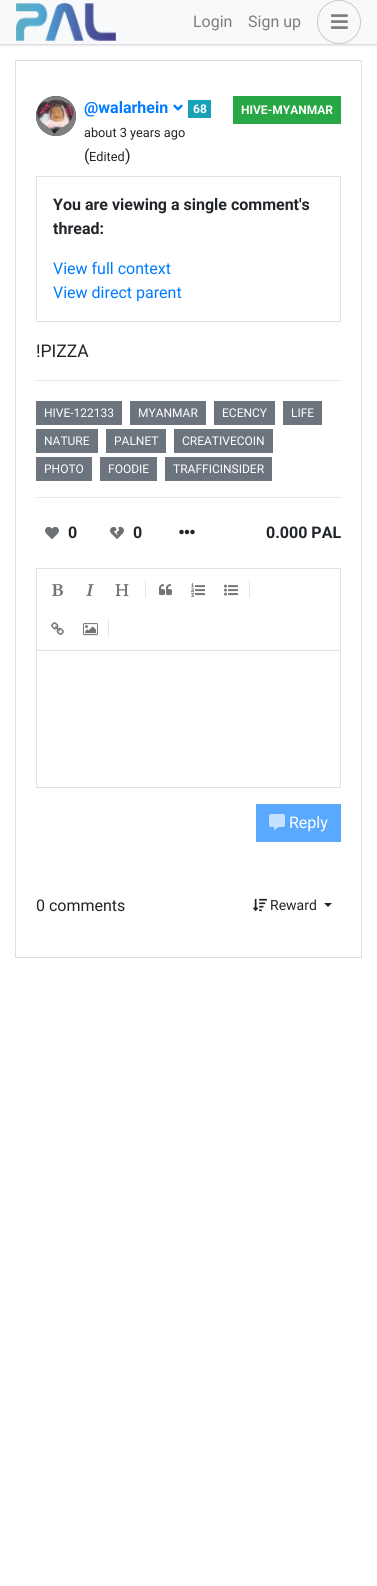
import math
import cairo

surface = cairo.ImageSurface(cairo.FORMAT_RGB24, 377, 1586)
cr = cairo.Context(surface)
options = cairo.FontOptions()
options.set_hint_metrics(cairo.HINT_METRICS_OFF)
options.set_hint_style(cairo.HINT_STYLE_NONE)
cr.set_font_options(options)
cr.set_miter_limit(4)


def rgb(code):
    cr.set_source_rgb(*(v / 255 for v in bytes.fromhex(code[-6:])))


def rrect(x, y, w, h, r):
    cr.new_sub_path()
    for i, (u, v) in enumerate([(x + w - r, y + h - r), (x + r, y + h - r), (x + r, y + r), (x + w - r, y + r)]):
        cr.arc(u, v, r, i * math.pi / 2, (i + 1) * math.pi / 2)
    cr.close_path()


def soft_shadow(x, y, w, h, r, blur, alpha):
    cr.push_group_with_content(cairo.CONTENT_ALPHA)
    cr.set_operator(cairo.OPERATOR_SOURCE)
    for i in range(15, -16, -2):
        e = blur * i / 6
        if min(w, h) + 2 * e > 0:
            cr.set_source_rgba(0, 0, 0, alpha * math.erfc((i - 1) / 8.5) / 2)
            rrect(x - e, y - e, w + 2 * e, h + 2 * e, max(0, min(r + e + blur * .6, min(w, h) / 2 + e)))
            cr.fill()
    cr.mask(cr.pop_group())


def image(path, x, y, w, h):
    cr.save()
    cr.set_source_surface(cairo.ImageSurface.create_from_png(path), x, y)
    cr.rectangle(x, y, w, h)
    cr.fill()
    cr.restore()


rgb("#ffffff")
cr.paint()
rgb("#000000")
soft_shadow(0, 1, 377, 44, 0, 1, 0.14)
soft_shadow(0, 1, 377, 44, 0, 1.5, 0.07)
rgb("#f8f9fa")
cr.rectangle(0, 0, 377, 44)
cr.fill()
image("img/1.png", 16, 3, 100, 38)
cr.arc(339, 22, 21.5, 0, 2 * math.pi)
rgb("#cacaca")
cr.set_line_width(1)
cr.stroke()
image("img/2.png", 331, 14, 17, 15)
cr.rectangle(15.5, 60.5, 346, 897)
rgb("#dfdfdf")
cr.stroke()
rgb("#343a40")
cr.arc(56, 116, 20, 0, 2 * math.pi)
cr.fill()
image("img/3.png", 36, 96, 40, 40)
image("img/4.png", 173, 104, 10, 7)
rgb("#17a2b8")
cr.rectangle(188, 100, 23, 18)
cr.fill()
rgb("#28a745")
cr.rectangle(233, 96, 108, 28)
cr.fill()
cr.rectangle(36.5, 176.5, 304, 145)
rgb("#dee2e6")
cr.stroke()
for x, y, w, h, color in [
    (36, 380, 305, 1, "#e6e6e6"),
    (36, 401, 86, 24, "#6c757d"),
    (130, 401, 76, 24, "#6c757d"),
    (214, 401, 61, 24, "#6c757d"),
    (283, 401, 39, 24, "#6c757d"),
    (36, 429, 62, 24, "#6c757d"),
    (106, 429, 60, 24, "#6c757d"),
    (174, 429, 99, 24, "#6c757d"),
    (36, 457, 56, 24, "#6c757d"),
    (100, 457, 57, 24, "#6c757d"),
    (165, 457, 107, 24, "#6c757d"),
    (36, 497, 305, 1, "#e6e6e6"),
]:
    rgb(color)
    cr.rectangle(x, y, w, h)
    cr.fill()
image("img/5.png", 45, 526, 14, 13)
image("img/6.png", 110, 526, 14, 13)
image("img/7.png", 179, 529, 16, 6)
cr.rectangle(36.5, 568.5, 304, 219)
rgb("#dee2e6")
cr.stroke()
cr.rectangle(37, 650, 303, 1)
cr.fill()
image("img/8.png", 52, 584, 11, 13)
image("img/9.png", 86, 584, 8, 13)
image("img/10.png", 115, 584, 14, 13)
rgb("#e5e5e5")
cr.rectangle(145, 581, 1, 17)
cr.fill()
image("img/11.png", 159, 584, 13, 12)
image("img/12.png", 191, 583, 14, 15)
image("img/13.png", 224, 584, 14, 12)
cr.rectangle(249, 581, 1, 17)
cr.fill()
image("img/14.png", 51, 622, 13, 13)
image("img/15.png", 83, 623, 15, 13)
cr.rectangle(108, 620, 1, 17)
cr.fill()
rgb("#59a9ff")
cr.rectangle(256, 804, 85, 38)
cr.fill()
image("img/16.png", 269, 814, 16, 16)
image("img/17.png", 253, 898, 14, 14)
rgb("#212529")
cr.new_path()
cr.move_to(324, 903)
cr.line_to(332, 903)
cr.line_to(328, 907)
cr.close_path()
cr.fill()
cr.select_font_face("Roboto")
cr.set_font_size(16)
rgb("#7c7d7d")
cr.move_to(193, 27)
cr.show_text("Login")
cr.move_to(248, 27)
cr.show_text("Sign up")
cr.select_font_face("Roboto", cairo.FONT_SLANT_NORMAL, cairo.FONT_WEIGHT_BOLD)
rgb("#007bff")
cr.move_to(84, 113)
cr.show_text("@walarhein")
cr.set_font_size(12)
rgb("#ffffff")
cr.move_to(193, 113)
cr.show_text("68")
cr.select_font_face("Roboto")
cr.set_font_size(12.75)
rgb("#212529")
cr.move_to(84, 137)
cr.show_text("about 3 years ago")
cr.set_font_size(16)
cr.move_to(84, 161)
cr.show_text("(")
cr.set_font_size(12.75)
cr.move_to(89, 161)
cr.show_text("Edited")
cr.set_font_size(16)
cr.move_to(125, 161)
cr.show_text(")")
cr.select_font_face("Roboto", cairo.FONT_SLANT_NORMAL, cairo.FONT_WEIGHT_BOLD)
cr.set_font_size(12)
rgb("#ffffff")
cr.move_to(241, 114)
cr.show_text("HIVE-MYANMAR")
cr.set_font_size(16)
rgb("#212529")
cr.move_to(53, 210)
cr.show_text("You are viewing a single comment's")
cr.move_to(53, 234)
cr.show_text("thread:")
cr.select_font_face("Roboto")
rgb("#007bff")
cr.move_to(53, 274)
cr.show_text("View full context")
cr.move_to(53, 298)
cr.show_text("View direct parent")
cr.set_font_size(17.5)
rgb("#212529")
cr.move_to(36, 357)
cr.show_text("!PIZZA")
cr.set_font_size(12)
rgb("#ffffff")
for x, y, s in [
    (44, 417, "HIVE-122133"),
    (138, 417, "MYANMAR"),
    (222, 417, "ECENCY"),
    (291, 417, "LIFE"),
    (44, 445, "NATURE"),
    (114, 445, "PALNET"),
    (182, 445, "CREATIVECOIN"),
    (44, 473, "PHOTO"),
    (108, 473, "FOODIE"),
    (173, 473, "TRAFFICINSIDER"),
]:
    cr.move_to(x, y)
    cr.show_text(s)
cr.select_font_face("Roboto", cairo.FONT_SLANT_NORMAL, cairo.FONT_WEIGHT_BOLD)
cr.set_font_size(16)
rgb("#212529")
for x, y, s in [
    (68, 538, "0"),
    (133, 538, "0"),
    (266, 538, "0.000 PAL"),
]:
    cr.move_to(x, y)
    cr.show_text(s)
cr.select_font_face("Roboto")
rgb("#ffffff")
cr.move_to(289, 828)
cr.show_text("Reply")
rgb("#212529")
cr.move_to(36, 911)
cr.show_text("0 comments")
cr.set_font_size(14)
cr.move_to(270, 910)
cr.show_text("Reward")
surface.write_to_png("page.png")
